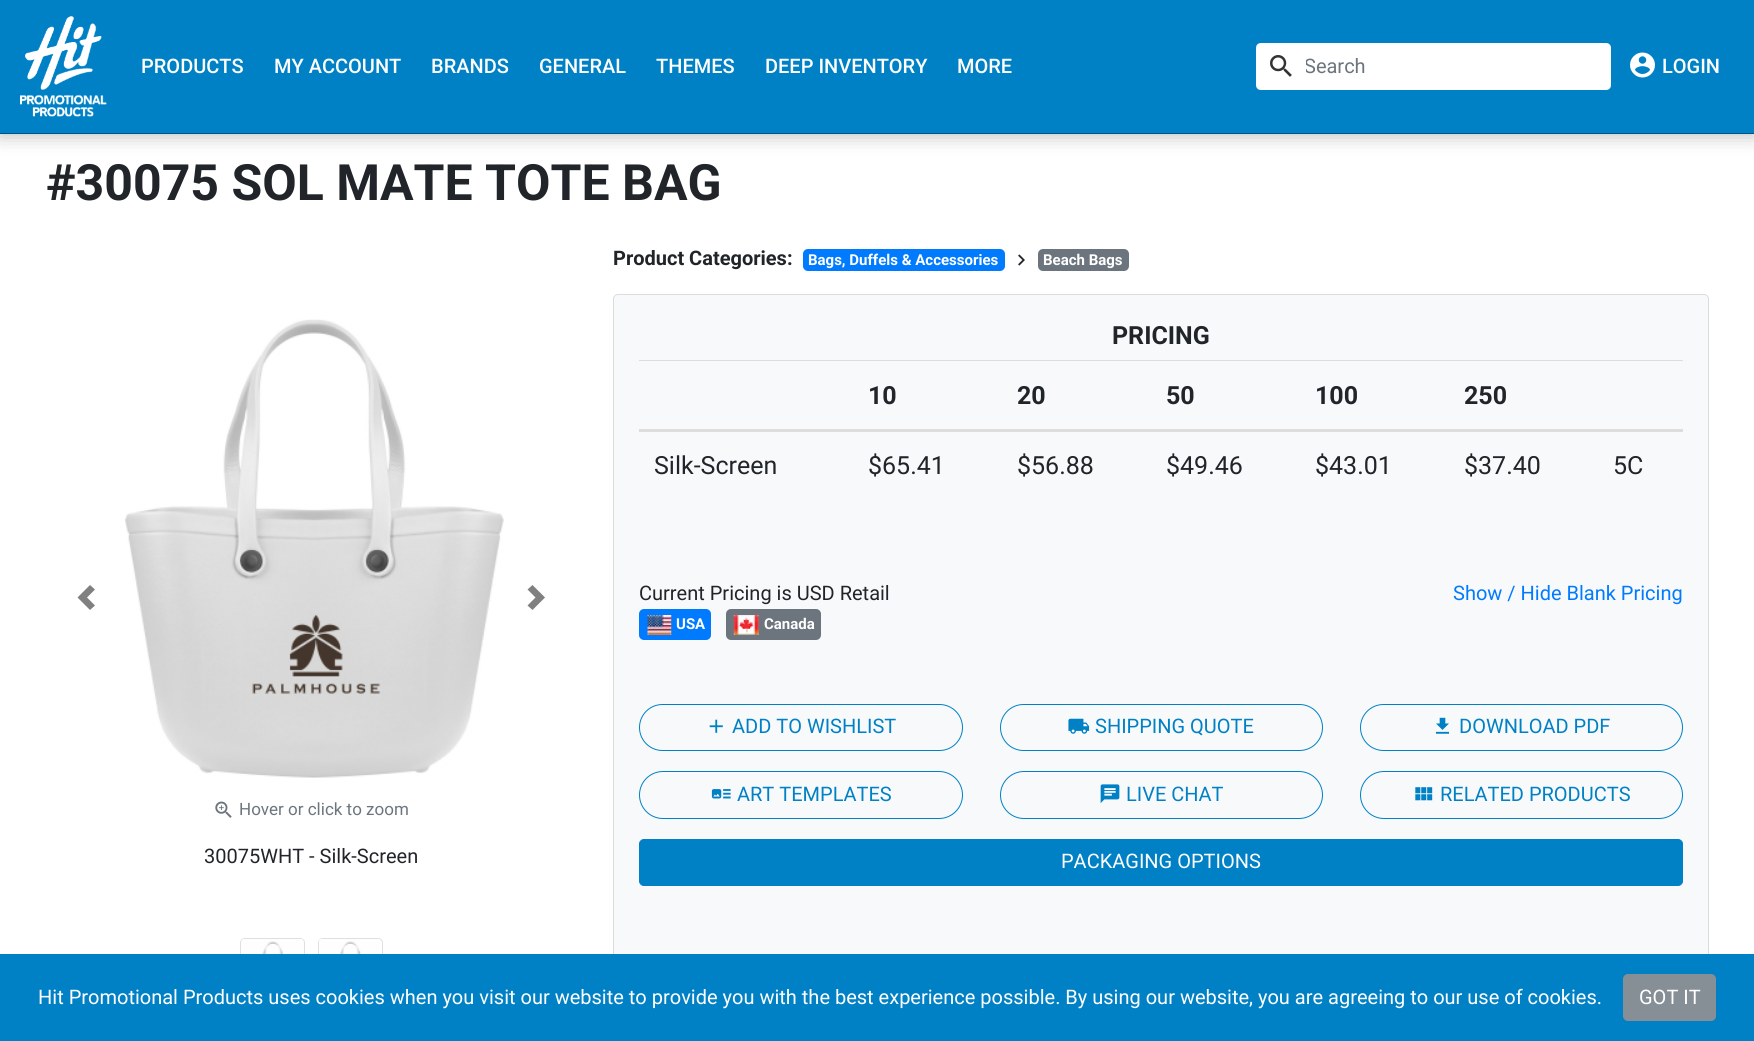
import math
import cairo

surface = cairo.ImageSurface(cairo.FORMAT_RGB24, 1754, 1041)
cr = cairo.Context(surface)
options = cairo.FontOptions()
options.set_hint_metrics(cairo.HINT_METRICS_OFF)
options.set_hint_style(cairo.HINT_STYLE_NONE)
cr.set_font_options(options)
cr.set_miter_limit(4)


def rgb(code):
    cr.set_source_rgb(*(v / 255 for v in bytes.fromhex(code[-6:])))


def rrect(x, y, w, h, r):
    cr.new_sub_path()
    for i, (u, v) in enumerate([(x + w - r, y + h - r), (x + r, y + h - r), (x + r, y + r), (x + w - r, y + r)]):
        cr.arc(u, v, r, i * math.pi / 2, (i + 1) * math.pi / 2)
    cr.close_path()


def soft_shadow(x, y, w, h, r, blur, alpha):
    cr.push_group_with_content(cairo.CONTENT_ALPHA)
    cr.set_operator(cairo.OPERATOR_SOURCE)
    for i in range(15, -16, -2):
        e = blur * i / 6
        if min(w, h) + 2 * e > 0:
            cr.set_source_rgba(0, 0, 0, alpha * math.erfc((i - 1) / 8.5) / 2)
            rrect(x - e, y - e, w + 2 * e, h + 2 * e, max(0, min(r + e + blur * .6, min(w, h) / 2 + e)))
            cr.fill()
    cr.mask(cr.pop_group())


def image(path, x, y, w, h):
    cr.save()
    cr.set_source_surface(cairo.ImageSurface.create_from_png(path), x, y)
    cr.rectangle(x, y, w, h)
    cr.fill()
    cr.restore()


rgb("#ffffff")
cr.paint()
rgb("#000000")
soft_shadow(0, 0, 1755, 134, 0, 10, 0.3)
rgb("#0081c6")
cr.rectangle(0, 0, 1754, 133)
cr.fill()
rgb("#00538a")
cr.rectangle(0, 133, 1754, 1)
cr.fill()
image("img/1.png", 20, 16, 87, 101)
rgb("#ffffff")
cr.rectangle(1306, 43, 265, 47)
cr.fill()
cr.new_path()
cr.move_to(1571, 43)
cr.line_to(1606, 43)
cr.curve_to(1609, 43, 1611, 45, 1611, 48)
cr.line_to(1611, 85)
cr.curve_to(1611, 88, 1609, 90, 1606, 90)
cr.line_to(1571, 90)
cr.close_path()
cr.fill()
image("img/3.png", 1630, 52, 25, 26)
rgb("#007bff")
rrect(803, 249, 202, 22, 5)
cr.fill()
image("img/4.png", 1018, 254, 7, 12)
rgb("#6c757d")
rrect(1038, 249, 91, 22, 5)
cr.fill()
rgb("#808080")
cr.new_path()
cr.move_to(90, 585)
cr.line_to(77.5, 597.5)
cr.line_to(90, 610)
cr.line_to(95, 605.5)
cr.line_to(87, 597.5)
cr.line_to(95, 589.5)
cr.close_path()
cr.fill()
cr.new_path()
cr.move_to(532.5, 585)
cr.line_to(527.5, 589.5)
cr.line_to(535.5, 597.5)
cr.line_to(527.5, 605.5)
cr.line_to(532.5, 610)
cr.line_to(545, 597.5)
cr.close_path()
cr.fill()
image("img/5.png", 125, 319, 379, 459)
image("img/6.png", 215, 801, 17, 17)
rrect(240.5, 938.5, 64, 64, 4.5)
rgb("#dfdfdf")
cr.set_line_width(1)
cr.stroke()
image("img/7.png", 241, 939, 63, 15)
rrect(318.5, 938.5, 64, 64, 4.5)
cr.stroke()
image("img/8.png", 319, 939, 61, 15)
rgb("#f8f9fa")
rrect(613, 294, 1096, 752, 5)
cr.fill()
rrect(613.5, 294.5, 1095, 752, 4.5)
cr.set_source_rgba(0, 0, 0, 0.12)
cr.stroke()
rgb("#dddddd")
cr.rectangle(639, 360, 1044, 1)
cr.fill()
cr.rectangle(639, 429, 1044, 3)
cr.fill()
rgb("#007bff")
rrect(639, 609, 72, 31, 5)
cr.fill()
image("img/9.png", 647, 615, 25, 20)
rgb("#6c757d")
rrect(726, 609, 95, 31, 5)
cr.fill()
image("img/10.png", 733, 615, 26, 20)
rrect(639.5, 704.5, 323, 46, 23)
rgb("#0081c6")
cr.stroke()
image("img/11.png", 709, 719, 14, 14)
rrect(1000.5, 704.5, 322, 46, 23)
cr.stroke()
image("img/12.png", 1068, 718, 22, 16)
rrect(1360.5, 704.5, 322, 46, 23)
cr.stroke()
image("img/13.png", 1435, 717, 15, 17)
rrect(639.5, 771.5, 323, 47, 23.5)
cr.stroke()
image("img/14.png", 711, 789, 20, 10)
rrect(1000.5, 771.5, 322, 47, 23.5)
cr.stroke()
image("img/15.png", 1100, 784, 20, 19)
rrect(1360.5, 771.5, 322, 47, 23.5)
cr.stroke()
image("img/16.png", 1415, 787, 18, 14)
rrect(639.5, 839.5, 1043, 46, 4.5)
cr.fill_preserve()
cr.stroke()
cr.rectangle(0, 954, 1754, 87)
cr.fill()
rgb("#868e96")
rrect(1623.5, 974.5, 92, 46, 4.5)
cr.fill_preserve()
cr.stroke()
cr.select_font_face("Roboto Medium")
cr.set_font_size(20)
rgb("#ffffff")
for x, y, s in [
    (141, 73, "PRODUCTS"),
    (274, 73, "MY ACCOUNT"),
    (431, 73, "BRANDS"),
    (539, 73, "GENERAL"),
    (656, 73, "THEMES"),
    (765, 73, "DEEP INVENTORY"),
    (957, 73, "MORE"),
]:
    cr.move_to(x, y)
    cr.show_text(s)
cr.select_font_face("Roboto")
rgb("#6c757d")
cr.move_to(1304, 73)
cr.show_text("Search")
rgb("#ffffff")
cr.new_path()
cr.move_to(1261, 43)
cr.line_to(1306, 43)
cr.line_to(1306, 90)
cr.line_to(1261, 90)
cr.curve_to(1258, 90, 1256, 88, 1256, 85)
cr.line_to(1256, 48)
cr.curve_to(1256, 45, 1258, 43, 1261, 43)
cr.close_path()
cr.fill()
image("img/2.png", 1270, 55, 22, 22)
cr.select_font_face("Roboto Medium")
cr.move_to(1662, 73)
cr.show_text("LOGIN")
cr.select_font_face("Roboto", cairo.FONT_SLANT_NORMAL, cairo.FONT_WEIGHT_BOLD)
cr.set_font_size(50)
rgb("#212529")
cr.move_to(46, 200)
cr.show_text("#30075 SOL MATE TOTE BAG")
cr.set_font_size(20)
cr.move_to(613, 265)
cr.show_text("Product Categories:")
cr.set_font_size(15)
rgb("#ffffff")
cr.move_to(808, 265)
cr.show_text("Bags, Duffels & Accessories")
cr.move_to(1043, 265)
cr.show_text("Beach Bags")
cr.select_font_face("Roboto")
cr.set_font_size(17)
rgb("#6c757d")
cr.move_to(239, 815)
cr.show_text("Hover or click to zoom")
cr.set_font_size(20)
rgb("#212529")
cr.move_to(204, 863)
cr.show_text("30075WHT - Silk-Screen")
cr.select_font_face("Roboto", cairo.FONT_SLANT_NORMAL, cairo.FONT_WEIGHT_BOLD)
cr.set_font_size(25)
for x, y, s in [
    (1112, 344, "PRICING"),
    (868, 404, "10"),
    (1017, 404, "20"),
    (1166, 404, "50"),
    (1315, 404, "100"),
    (1464, 404, "250"),
]:
    cr.move_to(x, y)
    cr.show_text(s)
cr.select_font_face("Roboto")
for x, y, s in [
    (654, 474, "Silk-Screen"),
    (868, 474, "$65.41"),
    (1017, 474, "$56.88"),
    (1166, 474, "$49.46"),
    (1315, 474, "$43.01"),
    (1464, 474, "$37.40"),
    (1613, 474, "5C"),
]:
    cr.move_to(x, y)
    cr.show_text(s)
cr.set_font_size(20)
cr.move_to(639, 600)
cr.show_text("Current Pricing is USD Retail")
rgb("#007bff")
cr.move_to(1453, 600)
cr.show_text("Show / Hide Blank Pricing")
cr.select_font_face("Roboto", cairo.FONT_SLANT_NORMAL, cairo.FONT_WEIGHT_BOLD)
cr.set_font_size(15)
rgb("#ffffff")
cr.move_to(676, 629)
cr.show_text("USA")
cr.move_to(764, 629)
cr.show_text("Canada")
cr.select_font_face("Roboto")
cr.set_font_size(20)
rgb("#0081c6")
for x, y, s in [
    (732, 733, "ADD TO WISHLIST"),
    (1095, 733, "SHIPPING QUOTE"),
    (1459, 733, "DOWNLOAD PDF"),
    (737, 801, "ART TEMPLATES"),
    (1126, 801, "LIVE CHAT"),
    (1440, 801, "RELATED PRODUCTS"),
]:
    cr.move_to(x, y)
    cr.show_text(s)
rgb("#ffffff")
for x, y, s in [
    (1061, 868, "PACKAGING OPTIONS"),
    (38, 1004, "Hit Promotional Products uses cookies when you visit our website to provide you with the best experience possible. By using our website, you are agreeing to our use of cookies."),
    (1639, 1004, "GOT IT"),
]:
    cr.move_to(x, y)
    cr.show_text(s)
surface.write_to_png("page.png")
